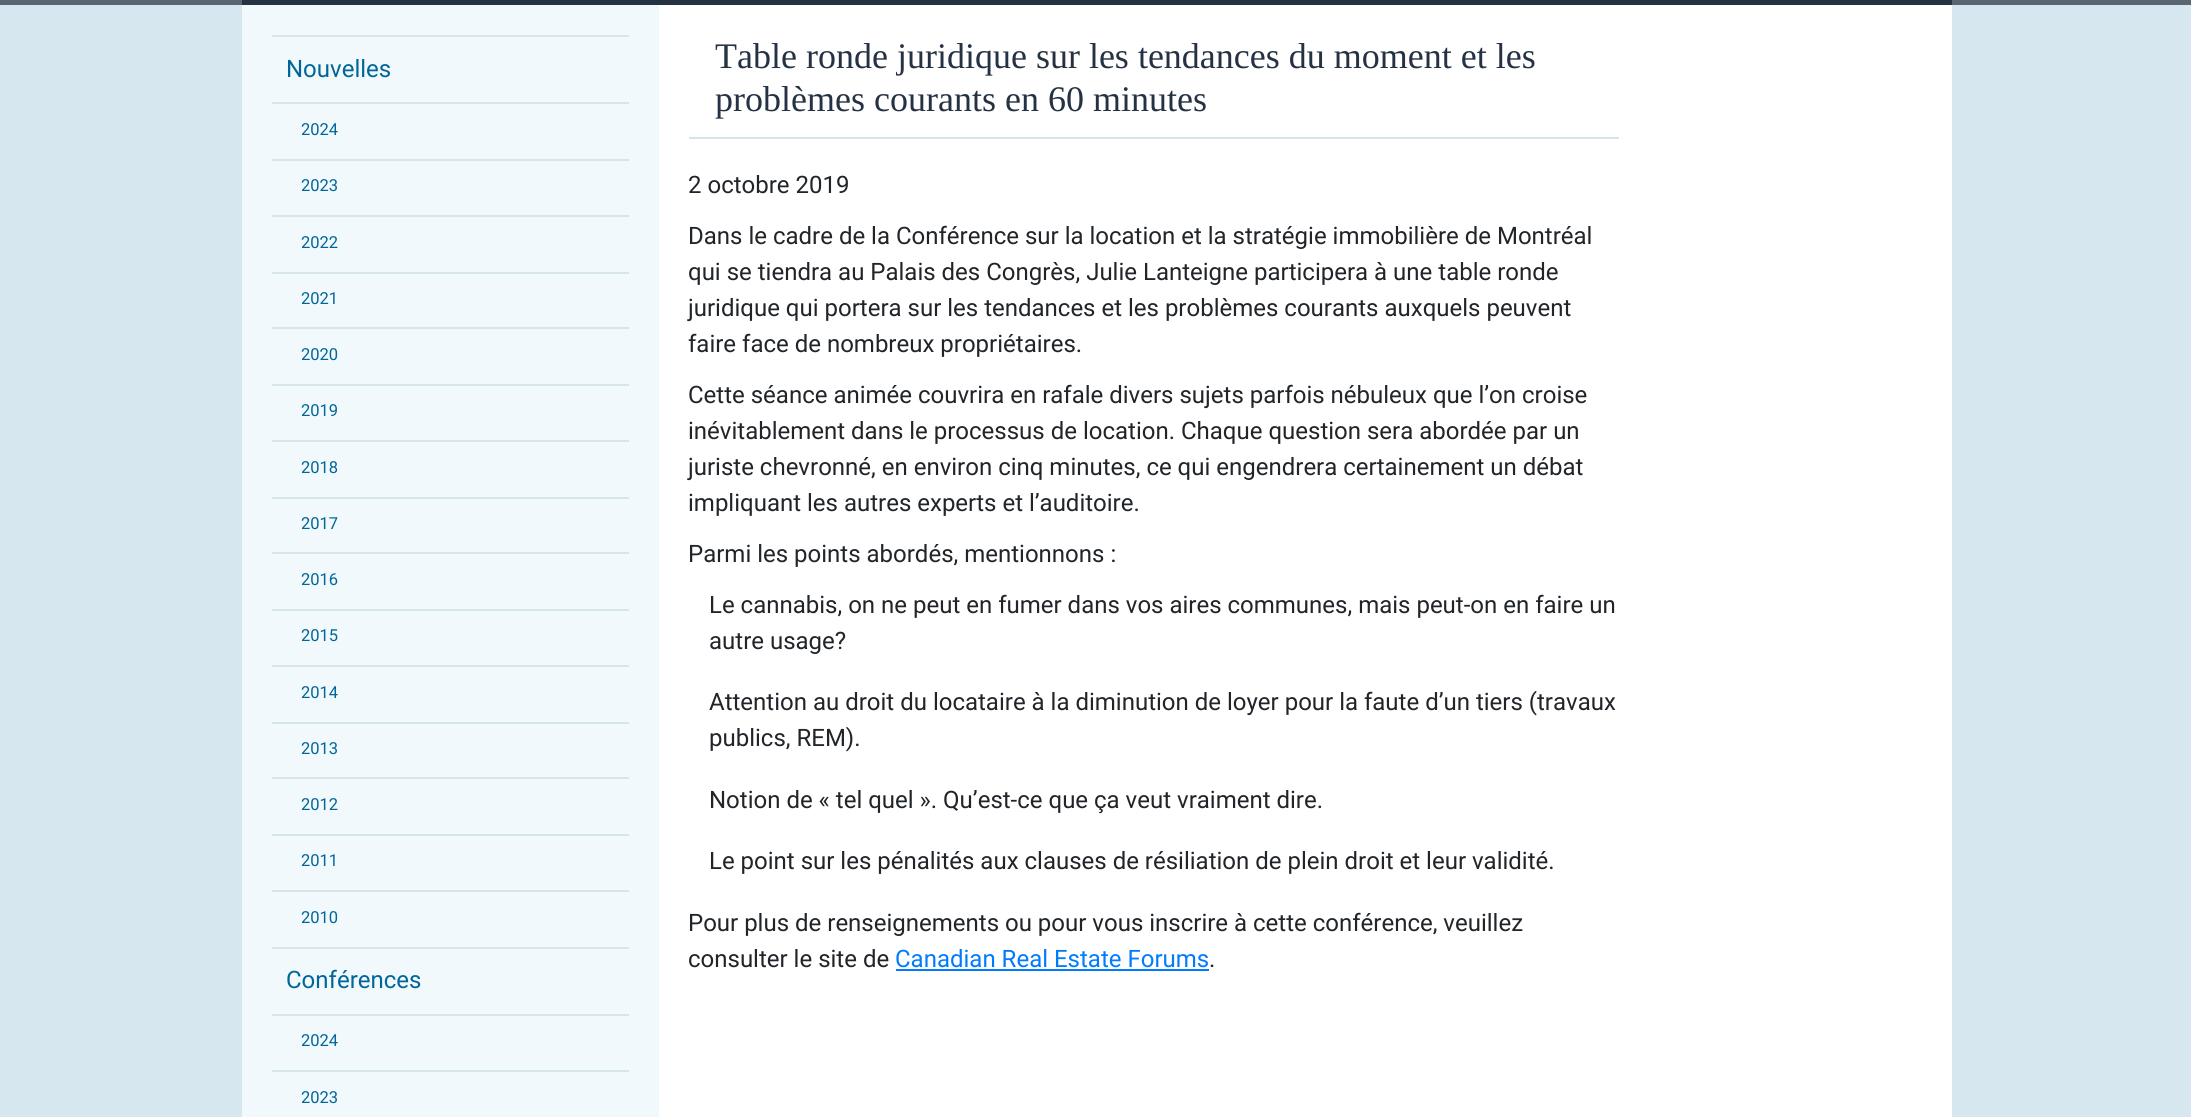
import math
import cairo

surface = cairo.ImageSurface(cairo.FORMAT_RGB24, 2191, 1117)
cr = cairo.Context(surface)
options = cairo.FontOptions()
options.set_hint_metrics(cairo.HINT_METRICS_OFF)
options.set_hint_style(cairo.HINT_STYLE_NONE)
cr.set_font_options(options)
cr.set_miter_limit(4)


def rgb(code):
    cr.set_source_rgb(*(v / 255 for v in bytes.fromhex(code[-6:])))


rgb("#5b6571")
cr.paint()
for x, y, w, h, color in [
    (242, 0, 1710, 5, "#253243"),
    (0, 5, 2191, 1112, "#d6e7ef"),
    (659, 5, 1293, 1112, "#ffffff"),
    (242, 5, 417, 1112, "#f1f9fc"),
    (272, 35, 357, 2, "#d5e5eb"),
    (272, 102, 357, 2, "#d5e5eb"),
    (272, 159, 357, 2, "#d5e5eb"),
    (272, 215, 357, 2, "#d5e5eb"),
    (272, 272, 357, 2, "#d5e5eb"),
    (272, 327, 357, 2, "#d5e5eb"),
    (272, 384, 357, 2, "#d5e5eb"),
    (272, 440, 357, 2, "#d5e5eb"),
    (272, 497, 357, 2, "#d5e5eb"),
    (272, 552, 357, 2, "#d5e5eb"),
    (272, 609, 357, 2, "#d5e5eb"),
    (272, 665, 357, 2, "#d5e5eb"),
    (272, 722, 357, 2, "#d5e5eb"),
    (272, 777, 357, 2, "#d5e5eb"),
    (272, 834, 357, 2, "#d5e5eb"),
    (272, 890, 357, 2, "#d5e5eb"),
    (272, 947, 357, 2, "#d5e5eb"),
    (272, 1014, 357, 2, "#d5e5eb"),
    (272, 1070, 357, 2, "#d5e5eb"),
    (689, 137, 930, 2, "#d5e5eb"),
    (896, 969, 313, 2, "#007bff"),
]:
    rgb(color)
    cr.rectangle(x, y, w, h)
    cr.fill()
cr.select_font_face("Roboto")
cr.set_font_size(24)
rgb("#006699")
cr.move_to(286, 77)
cr.show_text("Nouvelles")
cr.set_font_size(16.5)
for x, y, s in [
    (301, 135, "2024"),
    (301, 191, "2023"),
    (301, 248, "2022"),
    (301, 304, "2021"),
    (301, 360, "2020"),
    (301, 416, "2019"),
    (301, 473, "2018"),
    (301, 529, "2017"),
    (301, 585, "2016"),
    (301, 641, "2015"),
    (301, 698, "2014"),
    (301, 754, "2013"),
    (301, 810, "2012"),
    (301, 866, "2011"),
    (301, 923, "2010"),
]:
    cr.move_to(x, y)
    cr.show_text(s)
cr.set_font_size(24)
cr.move_to(286, 988)
cr.show_text("Conférences")
cr.set_font_size(16.5)
cr.move_to(301, 1046)
cr.show_text("2024")
cr.move_to(301, 1103)
cr.show_text("2023")
cr.select_font_face("Liberation Serif")
cr.set_font_size(36)
rgb("#253243")
cr.move_to(715, 68)
cr.show_text("Table ronde juridique sur les tendances du moment et les")
cr.move_to(715, 111)
cr.show_text("problèmes courants en 60 minutes")
cr.select_font_face("Roboto")
cr.set_font_size(24)
rgb("#212529")
for x, y, s in [
    (688, 193, "2 octobre 2019"),
    (688, 244, "Dans le cadre de la Conférence sur la location et la stratégie immobilière de Montréal"),
    (688, 280, "qui se tiendra au Palais des Congrès, Julie Lanteigne participera à une table ronde"),
    (688, 316, "juridique qui portera sur les tendances et les problèmes courants auxquels peuvent"),
    (688, 352, "faire face de nombreux propriétaires."),
    (688, 403, "Cette séance animée couvrira en rafale divers sujets parfois nébuleux que l’on croise"),
    (688, 439, "inévitablement dans le processus de location. Chaque question sera abordée par un"),
    (688, 475, "juriste chevronné, en environ cinq minutes, ce qui engendrera certainement un débat"),
    (688, 511, "impliquant les autres experts et l’auditoire."),
    (688, 562, "Parmi les points abordés, mentionnons :"),
    (709, 613, "Le cannabis, on ne peut en fumer dans vos aires communes, mais peut-on en faire un"),
    (709, 649, "autre usage?"),
    (709, 710, "Attention au droit du locataire à la diminution de loyer pour la faute d’un tiers (travaux"),
    (709, 746, "publics, REM)."),
    (709, 808, "Notion de « tel quel ». Qu’est-ce que ça veut vraiment dire."),
    (709, 869, "Le point sur les pénalités aux clauses de résiliation de plein droit et leur validité."),
    (688, 931, "Pour plus de renseignements ou pour vous inscrire à cette conférence, veuillez"),
    (688, 967, "consulter le site de"),
]:
    cr.move_to(x, y)
    cr.show_text(s)
rgb("#007bff")
cr.move_to(895, 967)
cr.show_text("Canadian Real Estate Forums")
rgb("#212529")
cr.move_to(1209, 967)
cr.show_text(".")
surface.write_to_png("page.png")
